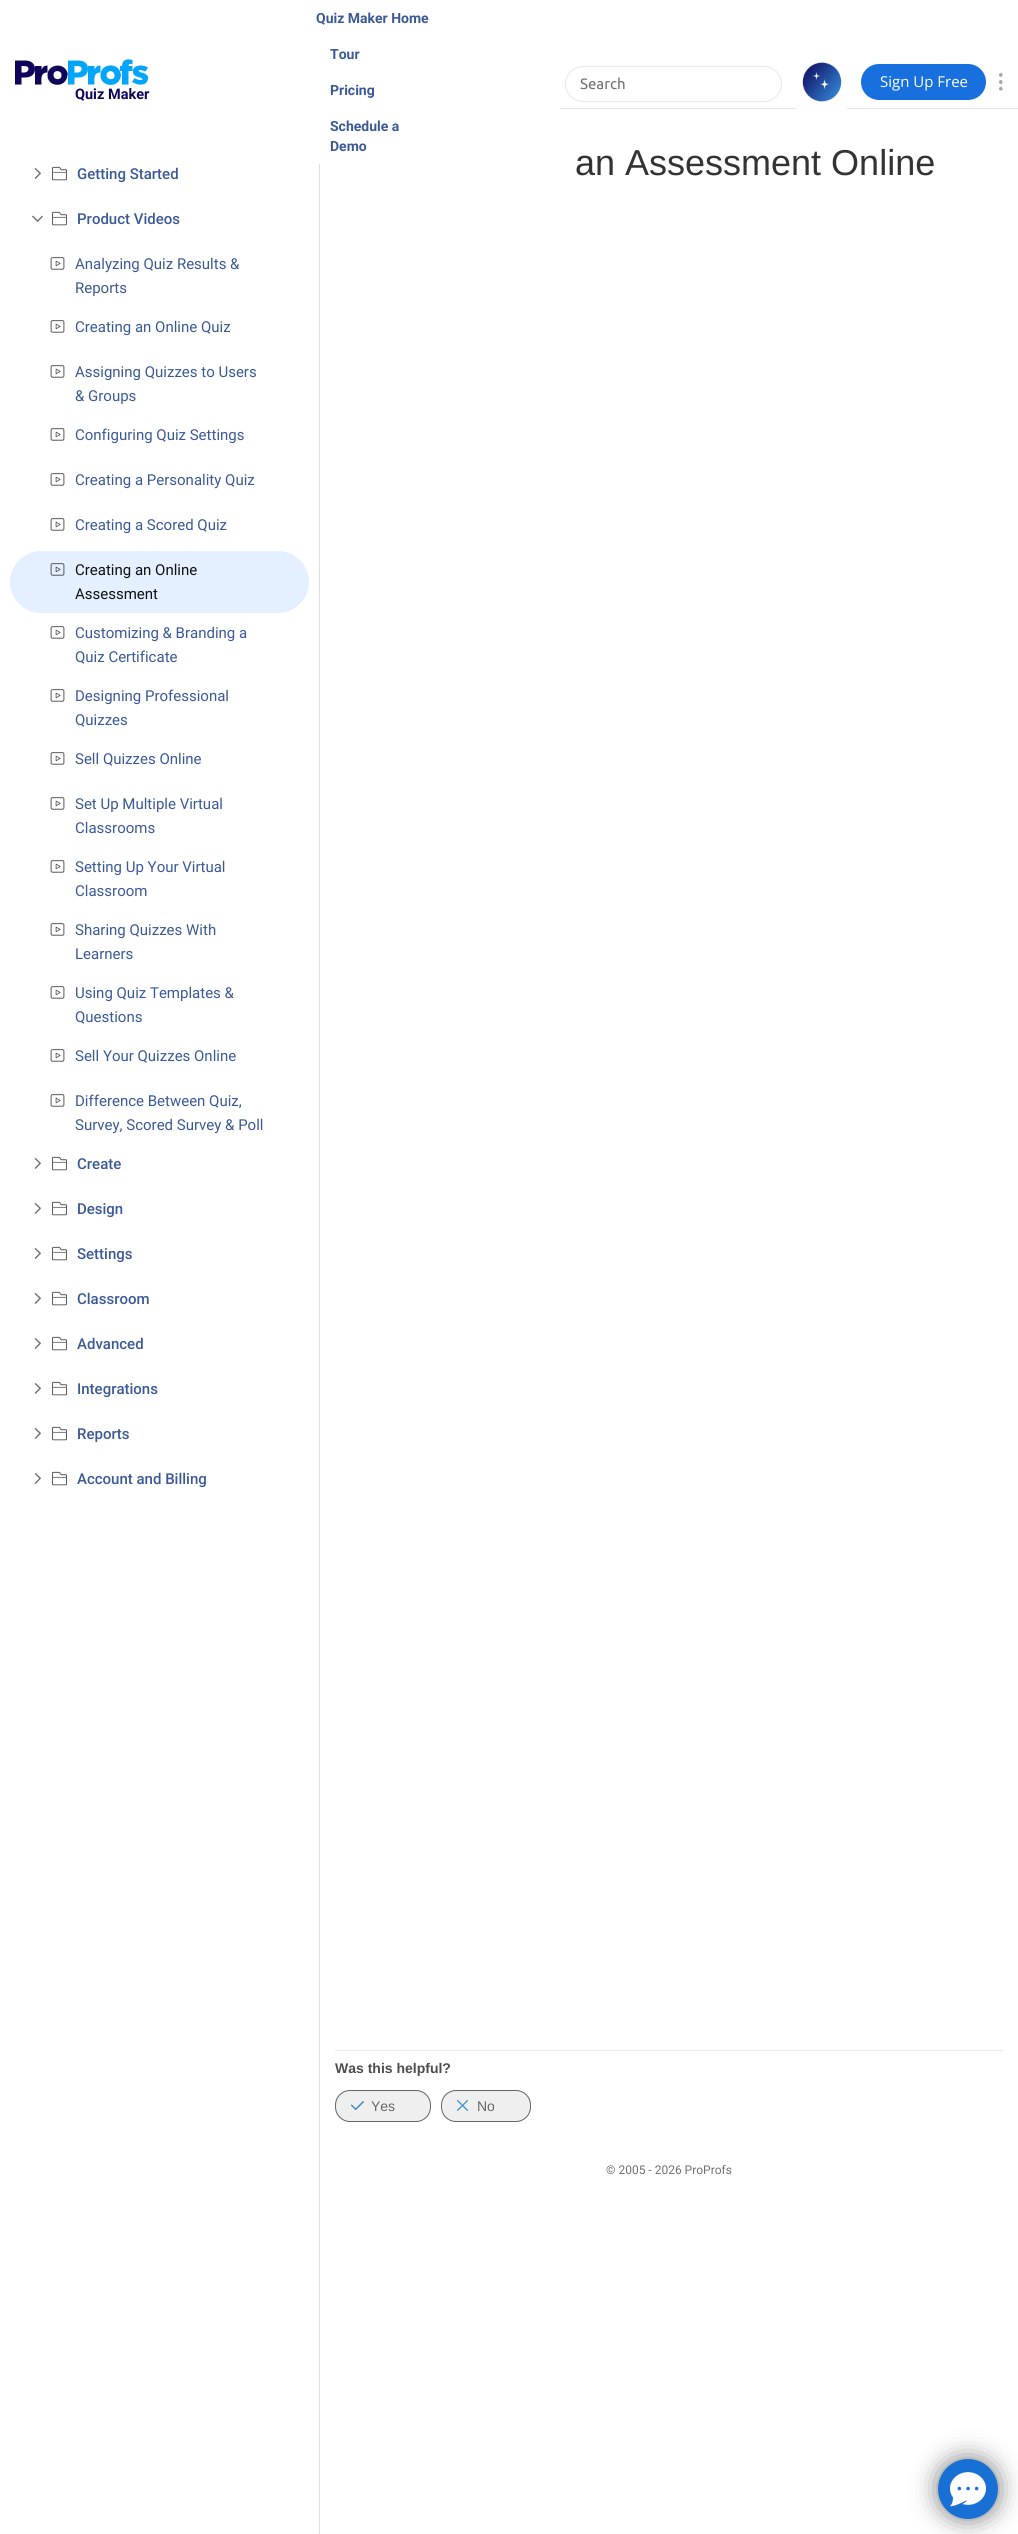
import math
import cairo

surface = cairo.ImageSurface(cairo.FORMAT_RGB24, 1018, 2534)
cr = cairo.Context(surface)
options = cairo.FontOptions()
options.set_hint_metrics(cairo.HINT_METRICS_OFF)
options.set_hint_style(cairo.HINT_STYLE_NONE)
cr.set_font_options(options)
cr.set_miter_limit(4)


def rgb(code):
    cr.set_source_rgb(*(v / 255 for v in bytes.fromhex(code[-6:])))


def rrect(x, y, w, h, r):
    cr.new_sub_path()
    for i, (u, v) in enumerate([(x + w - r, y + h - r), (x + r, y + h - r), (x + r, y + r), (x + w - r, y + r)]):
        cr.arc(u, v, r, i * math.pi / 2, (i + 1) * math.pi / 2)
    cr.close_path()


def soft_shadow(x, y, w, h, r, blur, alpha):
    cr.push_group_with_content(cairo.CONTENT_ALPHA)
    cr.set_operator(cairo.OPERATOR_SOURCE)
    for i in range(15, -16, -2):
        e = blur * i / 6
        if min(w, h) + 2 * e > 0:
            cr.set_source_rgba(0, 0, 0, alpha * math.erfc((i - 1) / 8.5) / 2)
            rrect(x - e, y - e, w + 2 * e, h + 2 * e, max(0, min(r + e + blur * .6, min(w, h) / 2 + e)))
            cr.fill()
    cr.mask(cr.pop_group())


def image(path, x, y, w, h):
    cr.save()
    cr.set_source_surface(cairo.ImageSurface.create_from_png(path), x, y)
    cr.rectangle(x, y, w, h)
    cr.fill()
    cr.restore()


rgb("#ffffff")
cr.paint()
rgb("#e7e7e7")
cr.rectangle(560, 108, 458, 1)
cr.fill()
rgb("#03a5fb")
cr.set_fill_rule(cairo.FILL_RULE_EVEN_ODD)
cr.new_path()
cr.move_to(78, 60.5)
cr.line_to(68, 60.5)
cr.line_to(68, 84.5)
cr.line_to(74.5, 84.5)
cr.line_to(74.5, 77.5)
cr.line_to(78, 77.5)
cr.curve_to(84, 77.5, 88, 74.5, 88, 69)
cr.curve_to(88, 63.5, 84.5, 60.5, 78, 60.5)
cr.close_path()
cr.move_to(78, 72.5)
cr.line_to(74.5, 72.5)
cr.line_to(74.5, 66)
cr.curve_to(76.5, 66, 78.5, 66, 80, 66.5)
cr.curve_to(83.5, 68, 81, 72.5, 78, 72.5)
cr.close_path()
cr.fill()
cr.set_fill_rule(cairo.FILL_RULE_WINDING)
cr.new_path()
cr.move_to(94.5, 66)
cr.line_to(88, 66)
cr.line_to(88, 84.5)
cr.line_to(94.5, 84.5)
cr.curve_to(94.5, 79.5, 93, 72.5, 100.5, 72.5)
cr.line_to(100.5, 65.5)
cr.curve_to(97.5, 65.5, 95.5, 67, 94.5, 69.5)
cr.close_path()
cr.fill()
cr.set_fill_rule(cairo.FILL_RULE_EVEN_ODD)
cr.new_path()
cr.move_to(100.5, 75.5)
cr.curve_to(100.5, 86, 116, 88.5, 120, 79)
cr.curve_to(120.5, 78, 121, 76, 121, 75)
cr.curve_to(119.5, 61.5, 100.5, 63, 100.5, 75)
cr.close_path()
cr.move_to(114.5, 75.5)
cr.curve_to(115, 80.5, 106.5, 80.5, 106.5, 75)
cr.line_to(107, 73)
cr.curve_to(109.5, 69.5, 114.5, 71.5, 114.5, 75)
cr.close_path()
cr.fill()
cr.set_fill_rule(cairo.FILL_RULE_WINDING)
cr.new_path()
cr.move_to(120, 71)
cr.line_to(122, 71)
cr.line_to(122, 84.5)
cr.line_to(128.5, 84.5)
cr.line_to(128.5, 71)
cr.line_to(132.5, 71)
cr.line_to(132.5, 66)
cr.line_to(128.5, 66)
cr.curve_to(128.5, 63.5, 131, 63.5, 132.5, 64.5)
cr.line_to(132.5, 60)
cr.curve_to(127, 58.5, 122, 59.5, 122, 66)
cr.line_to(120, 66)
cr.close_path()
cr.fill()
cr.new_path()
cr.move_to(132, 82)
cr.curve_to(134, 83, 136, 84, 138.5, 84.5)
cr.curve_to(143, 85, 147.5, 84, 148, 78.5)
cr.curve_to(148.5, 77.5, 148, 76, 147, 75.5)
cr.curve_to(145.5, 73, 142.5, 73, 140, 72)
cr.curve_to(138.5, 71.5, 138, 70, 140, 70)
cr.curve_to(141.5, 70, 144, 71, 145.5, 71.5)
cr.line_to(148, 67.5)
cr.curve_to(146, 66.5, 143.5, 65.5, 141, 65.5)
cr.curve_to(138.5, 65.5, 135.5, 66, 134, 68)
cr.curve_to(133, 69, 132.5, 70.5, 133, 71.5)
cr.curve_to(133, 76, 136.5, 76.5, 140, 77.5)
cr.line_to(142, 78.5)
cr.curve_to(144, 80.5, 139.5, 80, 139, 80)
cr.curve_to(137.5, 79.5, 135.5, 79, 134.5, 78)
cr.close_path()
cr.fill()
rgb("#0e055b")
cr.set_fill_rule(cairo.FILL_RULE_EVEN_ODD)
cr.new_path()
cr.move_to(15, 60.5)
cr.line_to(15, 84.5)
cr.line_to(21.5, 84.5)
cr.line_to(21.5, 77.5)
cr.line_to(25, 77.5)
cr.curve_to(31, 77.5, 35, 74.5, 35, 69)
cr.curve_to(35, 63.5, 31, 60.5, 25, 60.5)
cr.close_path()
cr.move_to(24.5, 72.5)
cr.line_to(21.5, 72.5)
cr.line_to(21.5, 66)
cr.curve_to(23.5, 66, 25.5, 66, 27, 66.5)
cr.curve_to(30, 68, 28, 72.5, 24.5, 72.5)
cr.close_path()
cr.fill()
cr.set_fill_rule(cairo.FILL_RULE_WINDING)
cr.new_path()
cr.move_to(41.5, 66)
cr.line_to(35, 66)
cr.line_to(35, 84.5)
cr.line_to(41.5, 84.5)
cr.curve_to(41.5, 79.5, 40, 72.5, 47.5, 72.5)
cr.line_to(47.5, 65.5)
cr.curve_to(44.5, 65.5, 42.5, 67, 41.5, 69.5)
cr.close_path()
cr.fill()
cr.set_fill_rule(cairo.FILL_RULE_EVEN_ODD)
cr.new_path()
cr.move_to(47.5, 75.5)
cr.curve_to(47.5, 87.5, 66.5, 88.5, 67.5, 75)
cr.curve_to(68, 74, 67.5, 72.5, 67, 71.5)
cr.curve_to(63, 62, 47.5, 64.5, 47.5, 75)
cr.close_path()
cr.move_to(61.5, 75.5)
cr.curve_to(61.5, 80.5, 53.5, 80.5, 53.5, 75)
cr.curve_to(53.5, 69.5, 61.5, 70, 61.5, 75)
cr.close_path()
cr.fill()
rrect(565.5, 66.5, 216, 35, 17.5)
rgb("#e7e7e7")
cr.set_line_width(1)
cr.stroke()
rgb("#ffffff")
cr.rectangle(797, 108, 50, 1)
cr.fill()
image("img/1.png", 802, 62, 40, 40)
rgb("#1870df")
rrect(861, 64, 125, 36, 18)
cr.fill()
image("img/2.png", 998, 72, 5, 19)
rgb("#dddddd")
cr.rectangle(319, 164, 1, 2370)
cr.fill()
image("img/3.png", 34, 168, 7, 11)
image("img/4.png", 52, 166, 15, 15)
image("img/5.png", 32, 215, 11, 7)
image("img/4.png", 52, 211, 15, 15)
image("img/6.png", 50, 257, 15, 13)
image("img/6.png", 50, 320, 15, 13)
image("img/6.png", 50, 365, 15, 13)
image("img/6.png", 50, 428, 15, 13)
image("img/6.png", 50, 473, 15, 13)
image("img/6.png", 50, 518, 15, 13)
rgb("#e4efff")
rrect(10, 551, 299, 62, 31)
cr.fill()
image("img/7.png", 50, 563, 15, 13)
image("img/6.png", 50, 626, 15, 13)
image("img/6.png", 50, 689, 15, 13)
image("img/6.png", 50, 752, 15, 13)
image("img/6.png", 50, 797, 15, 13)
image("img/6.png", 50, 860, 15, 13)
image("img/6.png", 50, 923, 15, 13)
image("img/6.png", 50, 986, 15, 13)
image("img/6.png", 50, 1049, 15, 13)
image("img/6.png", 50, 1094, 15, 13)
image("img/3.png", 34, 1158, 7, 11)
image("img/4.png", 52, 1156, 15, 15)
image("img/3.png", 34, 1203, 7, 11)
image("img/4.png", 52, 1201, 15, 15)
image("img/3.png", 34, 1248, 7, 11)
image("img/4.png", 52, 1246, 15, 15)
image("img/3.png", 34, 1293, 7, 11)
image("img/4.png", 52, 1291, 15, 15)
image("img/3.png", 34, 1338, 7, 11)
image("img/4.png", 52, 1336, 15, 15)
image("img/3.png", 34, 1383, 7, 11)
image("img/4.png", 52, 1381, 15, 15)
image("img/3.png", 34, 1428, 7, 11)
image("img/4.png", 52, 1426, 15, 15)
image("img/3.png", 34, 1473, 7, 11)
image("img/4.png", 52, 1471, 15, 15)
rgb("#ebebeb")
cr.rectangle(335, 2050, 668, 1)
cr.fill()
rgb("#efefef")
rrect(335, 2090, 96, 32, 15)
cr.fill()
image("img/8.png", 351, 2101, 13, 9)
rrect(335.5, 2090.5, 95, 31, 14.5)
rgb("#666666")
cr.stroke()
rgb("#efefef")
rrect(441, 2090, 90, 32, 15)
cr.fill()
image("img/9.png", 457, 2100, 11, 11)
rrect(441.5, 2090.5, 89, 31, 14.5)
rgb("#666666")
cr.stroke()
rgb("#7a7a7a")
soft_shadow(938, 2459, 60, 60, 30, 12.5, 1)
rgb("#1870d5")
cr.arc(968, 2489, 30, 0, 2 * math.pi)
cr.fill()
image("img/10.png", 950, 2472, 36, 35)
cr.select_font_face("Roboto", cairo.FONT_SLANT_NORMAL, cairo.FONT_WEIGHT_BOLD)
cr.set_font_size(14.5)
rgb("#0e055b")
cr.move_to(75, 99)
cr.show_text("Quiz Maker")
cr.set_font_size(14)
rgb("#3b5998")
for x, y, s in [
    (316, 23, "Quiz Maker Home"),
    (330, 59, "Tour"),
    (330, 95, "Pricing"),
    (330, 131, "Schedule a"),
    (330, 151, "Demo"),
]:
    cr.move_to(x, y)
    cr.show_text(s)
cr.select_font_face("Ubuntu")
cr.set_font_size(15)
rgb("#707070")
cr.move_to(580, 89)
cr.show_text("Search")
cr.select_font_face("Open Sans")
rgb("#ffffff")
cr.move_to(880, 87)
cr.show_text("Sign Up Free")
cr.select_font_face("Roboto Medium")
rgb("#3b5998")
cr.move_to(77, 179)
cr.show_text("Getting Started")
cr.move_to(77, 224)
cr.show_text("Product Videos")
cr.select_font_face("Roboto")
for x, y, s in [
    (75, 269, "Analyzing Quiz Results &"),
    (75, 293, "Reports"),
    (75, 332, "Creating an Online Quiz"),
    (75, 377, "Assigning Quizzes to Users"),
    (75, 401, "& Groups"),
    (75, 440, "Configuring Quiz Settings"),
    (75, 485, "Creating a Personality Quiz"),
    (75, 530, "Creating a Scored Quiz"),
]:
    cr.move_to(x, y)
    cr.show_text(s)
rgb("#111111")
cr.move_to(75, 575)
cr.show_text("Creating an Online")
cr.move_to(75, 599)
cr.show_text("Assessment")
rgb("#3b5998")
for x, y, s in [
    (75, 638, "Customizing & Branding a"),
    (75, 662, "Quiz Certificate"),
    (75, 701, "Designing Professional"),
    (75, 725, "Quizzes"),
    (75, 764, "Sell Quizzes Online"),
    (75, 809, "Set Up Multiple Virtual"),
    (75, 833, "Classrooms"),
    (75, 872, "Setting Up Your Virtual"),
    (75, 896, "Classroom"),
    (75, 935, "Sharing Quizzes With"),
    (75, 959, "Learners"),
    (75, 998, "Using Quiz Templates &"),
    (75, 1022, "Questions"),
    (75, 1061, "Sell Your Quizzes Online"),
    (75, 1106, "Difference Between Quiz,"),
    (75, 1130, "Survey, Scored Survey & Poll"),
]:
    cr.move_to(x, y)
    cr.show_text(s)
cr.select_font_face("Roboto Medium")
for x, y, s in [
    (77, 1169, "Create"),
    (77, 1214, "Design"),
    (77, 1259, "Settings"),
    (77, 1304, "Classroom"),
    (77, 1349, "Advanced"),
    (77, 1394, "Integrations"),
    (77, 1439, "Reports"),
    (77, 1484, "Account and Billing"),
]:
    cr.move_to(x, y)
    cr.show_text(s)
cr.select_font_face("Liberation Sans")
cr.set_font_size(36)
rgb("#333333")
cr.move_to(575, 175)
cr.show_text("an Assessment Online")
cr.select_font_face("Liberation Sans", cairo.FONT_SLANT_NORMAL, cairo.FONT_WEIGHT_BOLD)
cr.set_font_size(14)
rgb("#4d4d4d")
cr.move_to(335, 2073)
cr.show_text("Was this helpful?")
cr.select_font_face("Liberation Sans")
rgb("#666666")
cr.move_to(371, 2111)
cr.show_text("Yes")
cr.move_to(477, 2111)
cr.show_text("No")
cr.select_font_face("Roboto")
cr.set_font_size(12)
rgb("#707070")
cr.move_to(606, 2174)
cr.show_text("© 2005 - 2026 ProProfs")
surface.write_to_png("page.png")
